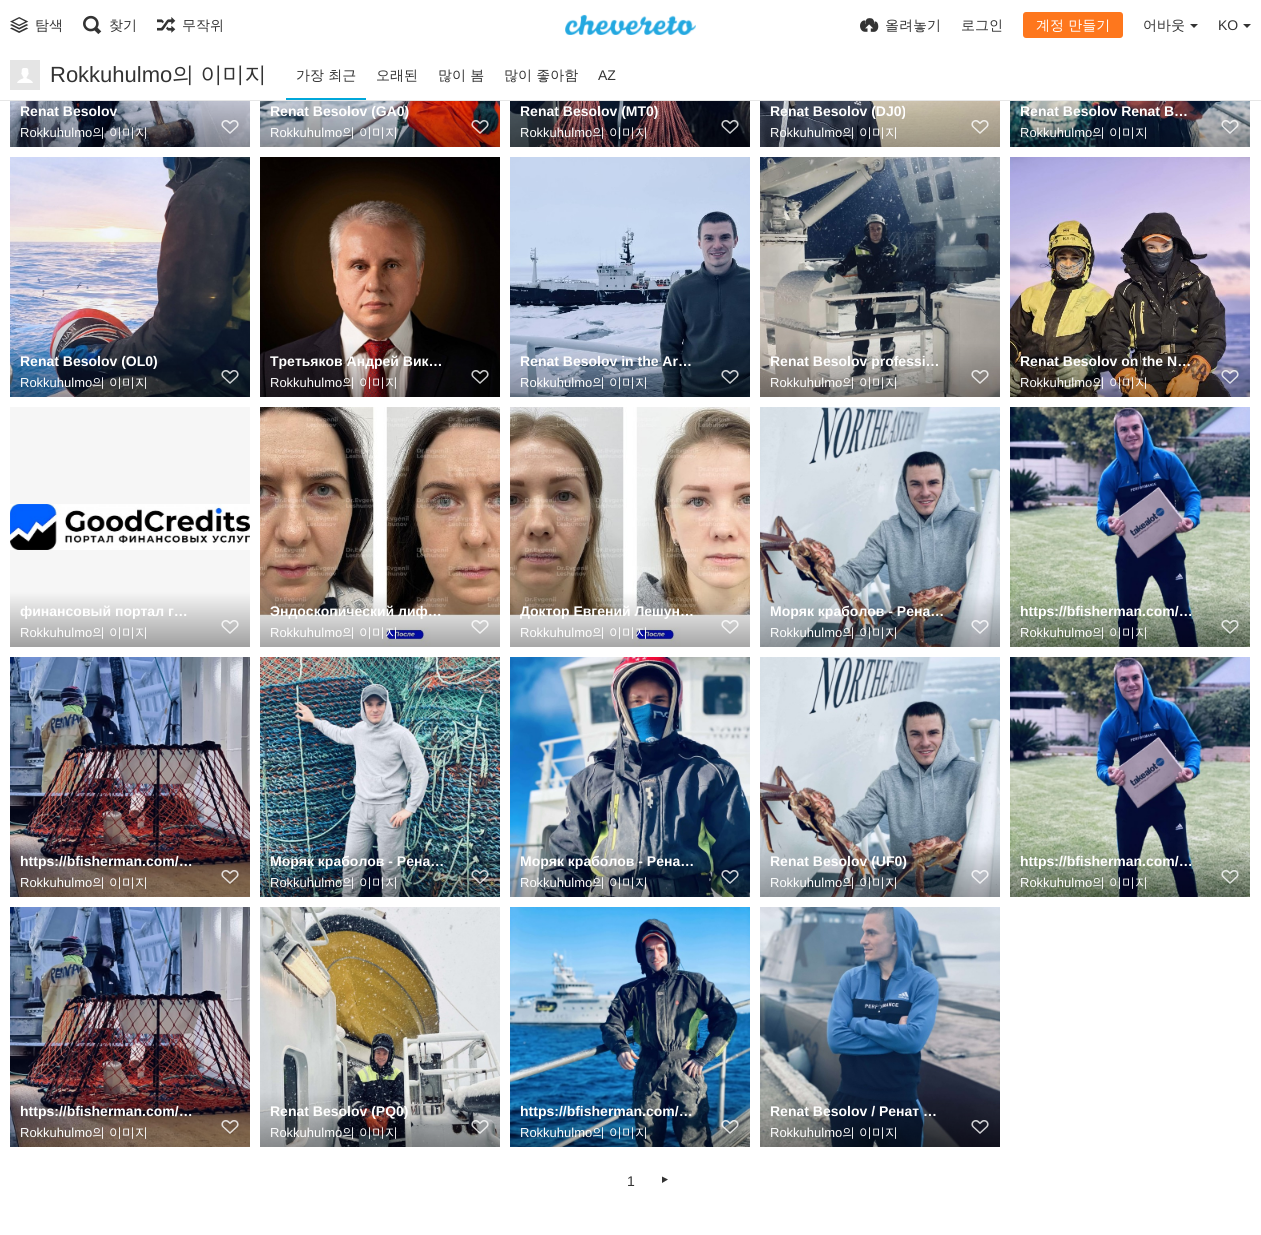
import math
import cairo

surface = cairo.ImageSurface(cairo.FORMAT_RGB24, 1261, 1235)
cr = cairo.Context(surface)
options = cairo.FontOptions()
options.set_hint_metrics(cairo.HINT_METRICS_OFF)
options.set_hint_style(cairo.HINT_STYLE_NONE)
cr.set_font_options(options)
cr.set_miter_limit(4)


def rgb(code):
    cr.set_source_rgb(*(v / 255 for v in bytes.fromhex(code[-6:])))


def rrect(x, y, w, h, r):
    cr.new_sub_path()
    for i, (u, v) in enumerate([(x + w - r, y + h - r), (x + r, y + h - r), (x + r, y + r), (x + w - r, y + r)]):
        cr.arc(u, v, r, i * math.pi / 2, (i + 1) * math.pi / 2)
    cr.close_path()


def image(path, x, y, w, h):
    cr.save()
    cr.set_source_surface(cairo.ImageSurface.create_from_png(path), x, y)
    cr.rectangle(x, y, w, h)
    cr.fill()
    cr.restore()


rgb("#ffffff")
cr.paint()
image("img/1.png", 10, 17, 19, 16)
image("img/2.png", 83, 15, 19, 20)
image("img/3.png", 157, 17, 19, 16)
image("img/4.png", 565, 14, 131, 21)
image("img/5.png", 860, 18, 19, 14)
rgb("#fe771d")
rrect(1023, 12, 100, 26, 3)
cr.fill()
rgb("#333333")
cr.new_path()
cr.move_to(1190, 24)
cr.line_to(1198, 24)
cr.line_to(1194, 28)
cr.close_path()
cr.fill()
cr.new_path()
cr.move_to(1243, 24)
cr.line_to(1251, 24)
cr.line_to(1247, 28)
cr.close_path()
cr.fill()
rgb("#e6e6e6")
cr.rectangle(0, 100, 1261, 1)
cr.fill()
rgb("#e5e5e5")
cr.rectangle(10, 60, 30, 30)
cr.fill()
image("img/6.png", 17, 68, 16, 15)
rgb("#00a7da")
cr.rectangle(286, 98, 80, 2)
cr.fill()
image("img/7.png", 10, 101, 240, 46)
image("img/8.png", 221, 120, 18, 14)
image("img/9.png", 260, 101, 240, 46)
image("img/10.png", 471, 120, 18, 14)
image("img/11.png", 510, 101, 240, 46)
image("img/12.png", 721, 120, 18, 14)
image("img/13.png", 760, 101, 240, 46)
image("img/14.png", 971, 120, 18, 14)
image("img/15.png", 1010, 101, 240, 46)
image("img/16.png", 1221, 120, 18, 14)
image("img/17.png", 10, 157, 240, 240)
image("img/18.png", 221, 370, 18, 14)
image("img/19.png", 260, 157, 240, 240)
image("img/20.png", 471, 370, 18, 14)
image("img/21.png", 510, 157, 240, 240)
image("img/22.png", 721, 370, 18, 14)
image("img/23.png", 760, 157, 240, 240)
image("img/24.png", 971, 370, 18, 14)
image("img/25.png", 1010, 157, 240, 240)
image("img/26.png", 1221, 370, 18, 14)
rgb("#f6f6f6")
cr.rectangle(10, 407, 240, 185)
cr.fill()
image("img/27.png", 10, 504, 240, 46)
gradient = cairo.LinearGradient(130, 592, 130, 647)
gradient.add_color_stop_rgba(0, 0.965, 0.965, 0.965, 1)
gradient.add_color_stop_rgba(1, 0.627, 0.627, 0.627, 1)
cr.set_source(gradient)
cr.rectangle(10, 592, 240, 55)
cr.fill()
image("img/28.png", 221, 620, 18, 14)
image("img/29.png", 260, 407, 240, 240)
image("img/30.png", 471, 620, 18, 14)
image("img/31.png", 510, 407, 240, 240)
image("img/30.png", 721, 620, 18, 14)
image("img/32.png", 760, 407, 240, 240)
image("img/33.png", 971, 620, 18, 14)
image("img/34.png", 1010, 407, 240, 240)
image("img/35.png", 1221, 620, 18, 14)
image("img/36.png", 10, 657, 240, 240)
image("img/37.png", 221, 870, 18, 14)
image("img/38.png", 260, 657, 240, 240)
image("img/39.png", 471, 870, 18, 14)
image("img/40.png", 510, 657, 240, 240)
image("img/41.png", 721, 870, 18, 14)
image("img/32.png", 760, 657, 240, 240)
image("img/33.png", 971, 870, 18, 14)
image("img/34.png", 1010, 657, 240, 240)
image("img/35.png", 1221, 870, 18, 14)
image("img/36.png", 10, 907, 240, 240)
image("img/37.png", 221, 1120, 18, 14)
image("img/42.png", 260, 907, 240, 240)
image("img/43.png", 471, 1120, 18, 14)
image("img/44.png", 510, 907, 240, 240)
image("img/45.png", 721, 1120, 18, 14)
image("img/46.png", 760, 907, 240, 240)
image("img/47.png", 971, 1120, 18, 14)
rgb("#333333")
cr.new_path()
cr.move_to(662, 1176.5)
cr.line_to(662, 1183)
cr.line_to(668, 1179.5)
cr.close_path()
cr.fill()
cr.select_font_face("WenQuanYi Zen Hei Medium")
cr.set_font_size(14)
for x, y, s in [
    (35, 30, "탐색"),
    (109, 30, "찾기"),
    (182, 30, "무작위"),
    (885, 30, "올려놓기"),
    (961, 30, "로그인"),
]:
    cr.move_to(x, y)
    cr.show_text(s)
rgb("#ffffff")
cr.move_to(1036, 30)
cr.show_text("계정 만들기")
rgb("#333333")
cr.move_to(1143, 30)
cr.show_text("어바웃")
cr.select_font_face("Liberation Sans")
cr.move_to(1218, 30)
cr.show_text("KO")
cr.set_font_size(22)
cr.move_to(50, 82)
cr.show_text("Rokkuhulmo")
cr.select_font_face("WenQuanYi Zen Hei Medium")
cr.move_to(172, 82)
cr.show_text("의 이미지")
cr.set_font_size(14)
for x, y, s in [
    (296, 80, "가장 최근"),
    (376, 80, "오래된"),
    (438, 80, "많이 봄"),
    (504, 80, "많이 좋아함"),
]:
    cr.move_to(x, y)
    cr.show_text(s)
cr.select_font_face("Liberation Sans")
cr.move_to(598, 80)
cr.show_text("AZ")
cr.select_font_face("Liberation Sans", cairo.FONT_SLANT_NORMAL, cairo.FONT_WEIGHT_BOLD)
rgb("#ffffff")
cr.move_to(20, 116)
cr.show_text("Renat Besolov")
cr.select_font_face("Liberation Sans")
cr.set_font_size(13)
cr.move_to(20, 137)
cr.show_text("Rokkuhulmo")
cr.select_font_face("WenQuanYi Zen Hei Medium")
cr.move_to(92, 137)
cr.show_text("의 이미지")
cr.select_font_face("Liberation Sans", cairo.FONT_SLANT_NORMAL, cairo.FONT_WEIGHT_BOLD)
cr.set_font_size(14)
cr.move_to(270, 116)
cr.show_text("Renat Besolov (GA0)")
cr.select_font_face("Liberation Sans")
cr.set_font_size(13)
cr.move_to(270, 137)
cr.show_text("Rokkuhulmo")
cr.select_font_face("WenQuanYi Zen Hei Medium")
cr.move_to(342, 137)
cr.show_text("의 이미지")
cr.select_font_face("Liberation Sans", cairo.FONT_SLANT_NORMAL, cairo.FONT_WEIGHT_BOLD)
cr.set_font_size(14)
cr.move_to(520, 116)
cr.show_text("Renat Besolov (MT0)")
cr.select_font_face("Liberation Sans")
cr.set_font_size(13)
cr.move_to(520, 137)
cr.show_text("Rokkuhulmo")
cr.select_font_face("WenQuanYi Zen Hei Medium")
cr.move_to(592, 137)
cr.show_text("의 이미지")
cr.select_font_face("Liberation Sans", cairo.FONT_SLANT_NORMAL, cairo.FONT_WEIGHT_BOLD)
cr.set_font_size(14)
cr.move_to(770, 116)
cr.show_text("Renat Besolov (DJ0)")
cr.select_font_face("Liberation Sans")
cr.set_font_size(13)
cr.move_to(770, 137)
cr.show_text("Rokkuhulmo")
cr.select_font_face("WenQuanYi Zen Hei Medium")
cr.move_to(842, 137)
cr.show_text("의 이미지")
cr.select_font_face("Liberation Sans", cairo.FONT_SLANT_NORMAL, cairo.FONT_WEIGHT_BOLD)
cr.set_font_size(14)
cr.move_to(1020, 116)
cr.show_text("Renat Besolov Renat B…")
cr.select_font_face("Liberation Sans")
cr.set_font_size(13)
cr.move_to(1020, 137)
cr.show_text("Rokkuhulmo")
cr.select_font_face("WenQuanYi Zen Hei Medium")
cr.move_to(1092, 137)
cr.show_text("의 이미지")
cr.select_font_face("Liberation Sans", cairo.FONT_SLANT_NORMAL, cairo.FONT_WEIGHT_BOLD)
cr.set_font_size(14)
cr.move_to(20, 366)
cr.show_text("Renat Besolov (OL0)")
cr.select_font_face("Liberation Sans")
cr.set_font_size(13)
cr.move_to(20, 387)
cr.show_text("Rokkuhulmo")
cr.select_font_face("WenQuanYi Zen Hei Medium")
cr.move_to(92, 387)
cr.show_text("의 이미지")
cr.select_font_face("Liberation Sans", cairo.FONT_SLANT_NORMAL, cairo.FONT_WEIGHT_BOLD)
cr.set_font_size(14)
cr.move_to(270, 366)
cr.show_text("Третьяков Андрей Вик…")
cr.select_font_face("Liberation Sans")
cr.set_font_size(13)
cr.move_to(270, 387)
cr.show_text("Rokkuhulmo")
cr.select_font_face("WenQuanYi Zen Hei Medium")
cr.move_to(342, 387)
cr.show_text("의 이미지")
cr.select_font_face("Liberation Sans", cairo.FONT_SLANT_NORMAL, cairo.FONT_WEIGHT_BOLD)
cr.set_font_size(14)
cr.move_to(520, 366)
cr.show_text("Renat Besolov in the Ar…")
cr.select_font_face("Liberation Sans")
cr.set_font_size(13)
cr.move_to(520, 387)
cr.show_text("Rokkuhulmo")
cr.select_font_face("WenQuanYi Zen Hei Medium")
cr.move_to(592, 387)
cr.show_text("의 이미지")
cr.select_font_face("Liberation Sans", cairo.FONT_SLANT_NORMAL, cairo.FONT_WEIGHT_BOLD)
cr.set_font_size(14)
cr.move_to(770, 366)
cr.show_text("Renat Besolov professi…")
cr.select_font_face("Liberation Sans")
cr.set_font_size(13)
cr.move_to(770, 387)
cr.show_text("Rokkuhulmo")
cr.select_font_face("WenQuanYi Zen Hei Medium")
cr.move_to(842, 387)
cr.show_text("의 이미지")
cr.select_font_face("Liberation Sans", cairo.FONT_SLANT_NORMAL, cairo.FONT_WEIGHT_BOLD)
cr.set_font_size(14)
cr.move_to(1020, 366)
cr.show_text("Renat Besolov on the N…")
cr.select_font_face("Liberation Sans")
cr.set_font_size(13)
cr.move_to(1020, 387)
cr.show_text("Rokkuhulmo")
cr.select_font_face("WenQuanYi Zen Hei Medium")
cr.move_to(1092, 387)
cr.show_text("의 이미지")
cr.select_font_face("Liberation Sans", cairo.FONT_SLANT_NORMAL, cairo.FONT_WEIGHT_BOLD)
cr.set_font_size(14)
cr.move_to(20, 616)
cr.show_text("финансовый портал г…")
cr.select_font_face("Liberation Sans")
cr.set_font_size(13)
cr.move_to(20, 637)
cr.show_text("Rokkuhulmo")
cr.select_font_face("WenQuanYi Zen Hei Medium")
cr.move_to(92, 637)
cr.show_text("의 이미지")
cr.select_font_face("Liberation Sans", cairo.FONT_SLANT_NORMAL, cairo.FONT_WEIGHT_BOLD)
cr.set_font_size(14)
cr.move_to(270, 616)
cr.show_text("Эндоскопический лиф…")
cr.select_font_face("Liberation Sans")
cr.set_font_size(13)
cr.move_to(270, 637)
cr.show_text("Rokkuhulmo")
cr.select_font_face("WenQuanYi Zen Hei Medium")
cr.move_to(342, 637)
cr.show_text("의 이미지")
cr.select_font_face("Liberation Sans", cairo.FONT_SLANT_NORMAL, cairo.FONT_WEIGHT_BOLD)
cr.set_font_size(14)
cr.move_to(520, 616)
cr.show_text("Доктор Евгений Лешун…")
cr.select_font_face("Liberation Sans")
cr.set_font_size(13)
cr.move_to(520, 637)
cr.show_text("Rokkuhulmo")
cr.select_font_face("WenQuanYi Zen Hei Medium")
cr.move_to(592, 637)
cr.show_text("의 이미지")
cr.select_font_face("Liberation Sans", cairo.FONT_SLANT_NORMAL, cairo.FONT_WEIGHT_BOLD)
cr.set_font_size(14)
cr.move_to(770, 616)
cr.show_text("Моряк краболов - Рена…")
cr.select_font_face("Liberation Sans")
cr.set_font_size(13)
cr.move_to(770, 637)
cr.show_text("Rokkuhulmo")
cr.select_font_face("WenQuanYi Zen Hei Medium")
cr.move_to(842, 637)
cr.show_text("의 이미지")
cr.select_font_face("Liberation Sans", cairo.FONT_SLANT_NORMAL, cairo.FONT_WEIGHT_BOLD)
cr.set_font_size(14)
cr.move_to(1020, 616)
cr.show_text("https://bfisherman.com/…")
cr.select_font_face("Liberation Sans")
cr.set_font_size(13)
cr.move_to(1020, 637)
cr.show_text("Rokkuhulmo")
cr.select_font_face("WenQuanYi Zen Hei Medium")
cr.move_to(1092, 637)
cr.show_text("의 이미지")
cr.select_font_face("Liberation Sans", cairo.FONT_SLANT_NORMAL, cairo.FONT_WEIGHT_BOLD)
cr.set_font_size(14)
cr.move_to(20, 866)
cr.show_text("https://bfisherman.com/…")
cr.select_font_face("Liberation Sans")
cr.set_font_size(13)
cr.move_to(20, 887)
cr.show_text("Rokkuhulmo")
cr.select_font_face("WenQuanYi Zen Hei Medium")
cr.move_to(92, 887)
cr.show_text("의 이미지")
cr.select_font_face("Liberation Sans", cairo.FONT_SLANT_NORMAL, cairo.FONT_WEIGHT_BOLD)
cr.set_font_size(14)
cr.move_to(270, 866)
cr.show_text("Моряк краболов - Рена…")
cr.select_font_face("Liberation Sans")
cr.set_font_size(13)
cr.move_to(270, 887)
cr.show_text("Rokkuhulmo")
cr.select_font_face("WenQuanYi Zen Hei Medium")
cr.move_to(342, 887)
cr.show_text("의 이미지")
cr.select_font_face("Liberation Sans", cairo.FONT_SLANT_NORMAL, cairo.FONT_WEIGHT_BOLD)
cr.set_font_size(14)
cr.move_to(520, 866)
cr.show_text("Моряк краболов - Рена…")
cr.select_font_face("Liberation Sans")
cr.set_font_size(13)
cr.move_to(520, 887)
cr.show_text("Rokkuhulmo")
cr.select_font_face("WenQuanYi Zen Hei Medium")
cr.move_to(592, 887)
cr.show_text("의 이미지")
cr.select_font_face("Liberation Sans", cairo.FONT_SLANT_NORMAL, cairo.FONT_WEIGHT_BOLD)
cr.set_font_size(14)
cr.move_to(770, 866)
cr.show_text("Renat Besolov (UF0)")
cr.select_font_face("Liberation Sans")
cr.set_font_size(13)
cr.move_to(770, 887)
cr.show_text("Rokkuhulmo")
cr.select_font_face("WenQuanYi Zen Hei Medium")
cr.move_to(842, 887)
cr.show_text("의 이미지")
cr.select_font_face("Liberation Sans", cairo.FONT_SLANT_NORMAL, cairo.FONT_WEIGHT_BOLD)
cr.set_font_size(14)
cr.move_to(1020, 866)
cr.show_text("https://bfisherman.com/…")
cr.select_font_face("Liberation Sans")
cr.set_font_size(13)
cr.move_to(1020, 887)
cr.show_text("Rokkuhulmo")
cr.select_font_face("WenQuanYi Zen Hei Medium")
cr.move_to(1092, 887)
cr.show_text("의 이미지")
cr.select_font_face("Liberation Sans", cairo.FONT_SLANT_NORMAL, cairo.FONT_WEIGHT_BOLD)
cr.set_font_size(14)
cr.move_to(20, 1116)
cr.show_text("https://bfisherman.com/…")
cr.select_font_face("Liberation Sans")
cr.set_font_size(13)
cr.move_to(20, 1137)
cr.show_text("Rokkuhulmo")
cr.select_font_face("WenQuanYi Zen Hei Medium")
cr.move_to(92, 1137)
cr.show_text("의 이미지")
cr.select_font_face("Liberation Sans", cairo.FONT_SLANT_NORMAL, cairo.FONT_WEIGHT_BOLD)
cr.set_font_size(14)
cr.move_to(270, 1116)
cr.show_text("Renat Besolov (PQ0)")
cr.select_font_face("Liberation Sans")
cr.set_font_size(13)
cr.move_to(270, 1137)
cr.show_text("Rokkuhulmo")
cr.select_font_face("WenQuanYi Zen Hei Medium")
cr.move_to(342, 1137)
cr.show_text("의 이미지")
cr.select_font_face("Liberation Sans", cairo.FONT_SLANT_NORMAL, cairo.FONT_WEIGHT_BOLD)
cr.set_font_size(14)
cr.move_to(520, 1116)
cr.show_text("https://bfisherman.com/…")
cr.select_font_face("Liberation Sans")
cr.set_font_size(13)
cr.move_to(520, 1137)
cr.show_text("Rokkuhulmo")
cr.select_font_face("WenQuanYi Zen Hei Medium")
cr.move_to(592, 1137)
cr.show_text("의 이미지")
cr.select_font_face("Liberation Sans", cairo.FONT_SLANT_NORMAL, cairo.FONT_WEIGHT_BOLD)
cr.set_font_size(14)
cr.move_to(770, 1116)
cr.show_text("Renat Besolov / Ренат …")
cr.select_font_face("Liberation Sans")
cr.set_font_size(13)
cr.move_to(770, 1137)
cr.show_text("Rokkuhulmo")
cr.select_font_face("WenQuanYi Zen Hei Medium")
cr.move_to(842, 1137)
cr.show_text("의 이미지")
cr.select_font_face("Liberation Sans")
cr.set_font_size(14)
rgb("#333333")
cr.move_to(627, 1186)
cr.show_text("1")
surface.write_to_png("page.png")
